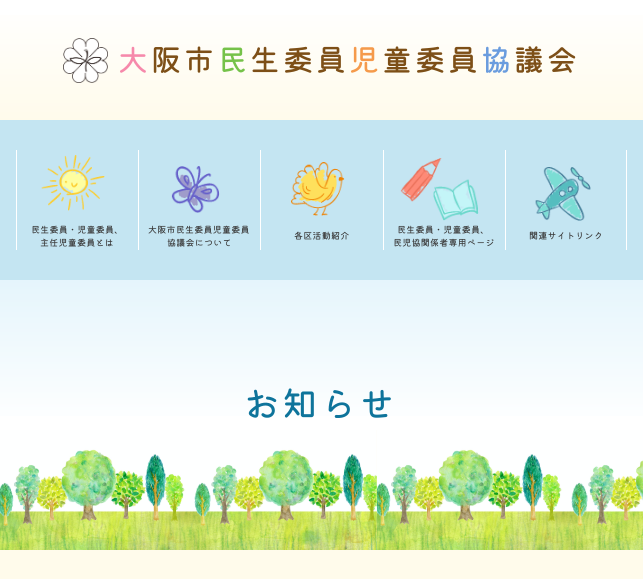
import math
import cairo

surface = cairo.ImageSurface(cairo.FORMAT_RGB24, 643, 579)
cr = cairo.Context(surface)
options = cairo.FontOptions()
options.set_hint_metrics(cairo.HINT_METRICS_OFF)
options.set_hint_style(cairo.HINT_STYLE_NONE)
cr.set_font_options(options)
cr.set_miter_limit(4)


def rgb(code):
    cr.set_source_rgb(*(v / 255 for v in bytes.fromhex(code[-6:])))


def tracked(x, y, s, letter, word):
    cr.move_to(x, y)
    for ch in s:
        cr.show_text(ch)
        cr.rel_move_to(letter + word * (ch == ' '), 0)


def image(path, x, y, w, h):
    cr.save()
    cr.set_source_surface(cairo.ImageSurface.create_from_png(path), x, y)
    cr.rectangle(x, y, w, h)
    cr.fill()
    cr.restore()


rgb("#ffffff")
cr.paint()
gradient = cairo.LinearGradient(322, 0, 322, 120)
gradient.add_color_stop_rgba(0, 1, 1, 1, 1)
gradient.add_color_stop_rgba(1, 1, 0.984, 0.922, 1)
cr.set_source(gradient)
cr.rectangle(0, 15, 643, 105)
cr.fill()
image("img/1.png", 63, 38, 45, 45)
rgb("#c4e5f2")
cr.rectangle(0, 120, 643, 160)
cr.fill()
rgb("#ffffff")
cr.rectangle(16, 150, 1, 100)
cr.fill()
image("img/2.png", 41, 155, 64, 56)
cr.rectangle(138, 150, 1, 100)
cr.fill()
image("img/3.png", 171, 166, 49, 47)
cr.rectangle(260, 150, 1, 100)
cr.fill()
image("img/4.png", 291, 162, 54, 54)
cr.rectangle(383, 150, 1, 100)
cr.fill()
image("img/5.png", 400, 158, 79, 63)
cr.rectangle(505, 150, 1, 100)
cr.fill()
image("img/6.png", 535, 167, 56, 54)
cr.rectangle(626, 150, 1, 100)
cr.fill()
rgb("#fffbeb")
cr.rectangle(0, 430, 643, 149)
cr.fill()
image("img/7.png", 0, 430, 643, 120)
gradient = cairo.LinearGradient(322, 280, 322, 430)
gradient.add_color_stop_rgba(0, 0.898, 0.961, 0.988, 1)
gradient.add_color_stop_rgba(1, 1, 1, 1, 1)
cr.set_source(gradient)
cr.rectangle(0, 280, 643, 136)
cr.fill()
cr.select_font_face("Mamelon")
cr.set_font_size(30)
rgb("#f689ab")
tracked(118, 71, "大", 3, 0)
rgb("#7d4f17")
tracked(151, 71, "阪市", 3, 0)
rgb("#75c249")
tracked(217, 71, "民", 3, 0)
rgb("#7d4f17")
tracked(250, 71, "生委員", 3, 0)
rgb("#f59a4b")
tracked(349, 71, "児", 3, 0)
rgb("#7d4f17")
tracked(382, 71, "童委員", 3, 0)
rgb("#6a9cde")
tracked(481, 71, "協", 3, 0)
rgb("#7d4f17")
tracked(514, 71, "議会", 3, 0)
cr.set_font_size(9)
rgb("#3b3b3b")
for x, y, s in [
    (31, 233, "民生委員・児童委員、"),
    (40, 246, "主任児童委員とは"),
    (148, 233, "大阪市民生委員児童委員"),
    (167, 246, "協議会について"),
    (294, 239, "各区活動紹介"),
    (397, 233, "民生委員・児童委員、"),
    (393, 246, "民児協関係者専用ページ"),
    (529, 239, "関連サイトリンク"),
]:
    tracked(x, y, s, 0.25, 0)
cr.set_font_size(35)
rgb("#0e749b")
tracked(244, 417, "お知らせ", 3.5, 0)
surface.write_to_png("page.png")
